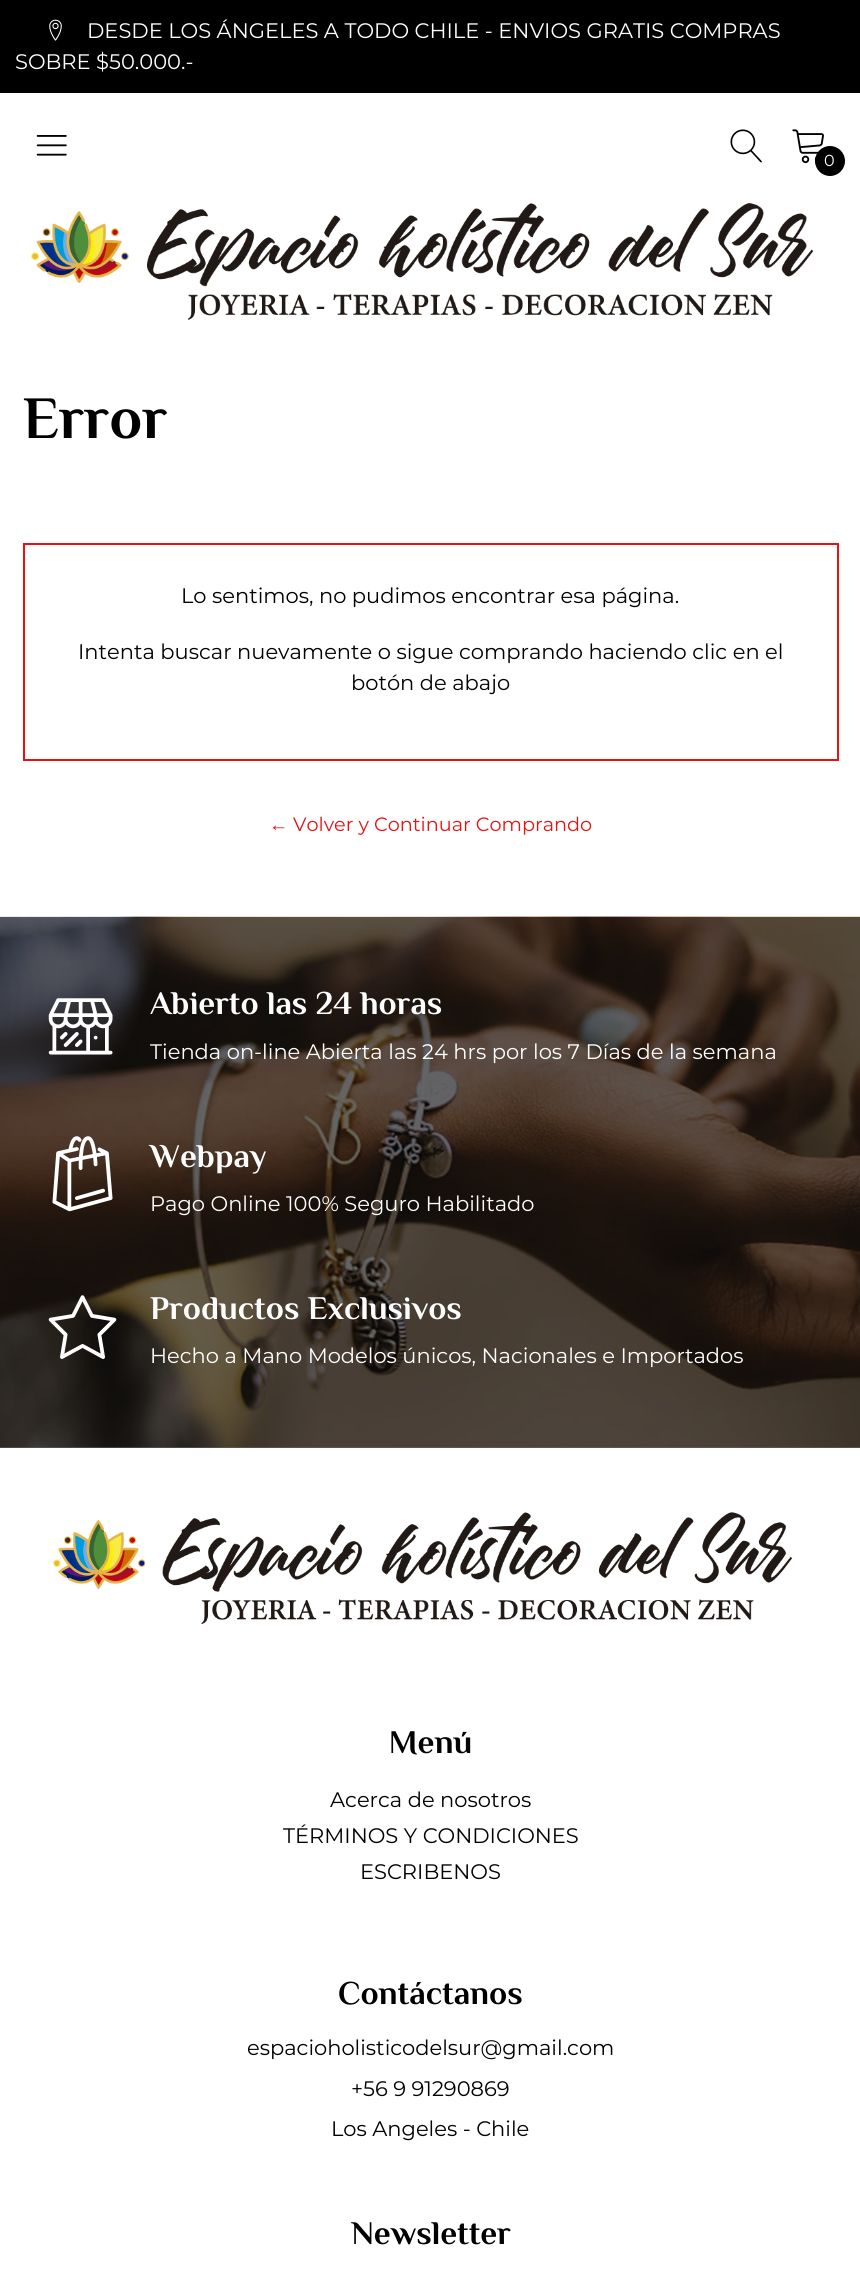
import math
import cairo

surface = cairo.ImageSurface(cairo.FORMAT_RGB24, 860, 2277)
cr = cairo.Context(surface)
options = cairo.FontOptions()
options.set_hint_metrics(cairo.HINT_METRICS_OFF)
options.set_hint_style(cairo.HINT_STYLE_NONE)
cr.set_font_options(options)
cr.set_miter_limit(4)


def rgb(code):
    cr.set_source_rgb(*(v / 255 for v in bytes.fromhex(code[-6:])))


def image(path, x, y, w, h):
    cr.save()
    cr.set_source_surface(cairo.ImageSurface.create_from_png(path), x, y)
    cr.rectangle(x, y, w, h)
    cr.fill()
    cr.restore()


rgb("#ffffff")
cr.paint()
rgb("#666666")
cr.rectangle(0, 1447, 860, 1)
cr.fill()
rgb("#000000")
cr.rectangle(0, 0, 860, 93)
cr.fill()
image("img/1.png", 49, 19, 13, 22)
image("img/2.png", 36, 135, 31, 21)
image("img/3.png", 730, 129, 32, 34)
image("img/4.png", 792, 129, 32, 35)
cr.arc(830, 161, 15, 0, 2 * math.pi)
cr.fill()
image("img/5.png", 30, 203, 784, 117)
cr.rectangle(24, 544, 814, 216)
rgb("#e71211")
cr.stroke()
image("img/6.png", 0, 916, 860, 532)
image("img/7.png", 48, 998, 65, 57)
image("img/8.png", 52, 1136, 61, 76)
image("img/9.png", 48, 1295, 69, 64)
image("img/10.png", 53, 1512, 739, 112)
cr.select_font_face("Montserrat")
cr.set_font_size(21)
rgb("#ffffff")
cr.move_to(87, 38)
cr.show_text("DESDE LOS ÁNGELES A TODO CHILE - ENVIOS GRATIS COMPRAS")
cr.move_to(15, 69)
cr.show_text("SOBRE $50.000.-")
cr.set_font_size(16)
cr.move_to(824, 166)
cr.show_text("0")
cr.select_font_face("Philosopher", cairo.FONT_SLANT_NORMAL, cairo.FONT_WEIGHT_BOLD)
cr.set_font_size(60)
rgb("#000000")
cr.move_to(23, 438)
cr.show_text("Error")
cr.select_font_face("Montserrat")
cr.set_font_size(21)
for x, y, s in [
    (181, 603, "Lo sentimos, no pudimos encontrar esa página."),
    (78, 659, "Intenta buscar nuevamente o sigue comprando haciendo clic en el"),
    (351, 690, "botón de abajo"),
]:
    cr.move_to(x, y)
    cr.show_text(s)
cr.select_font_face("Liberation Serif")
cr.set_font_size(19.25)
rgb("#e71211")
cr.move_to(269, 831)
cr.show_text("←")
cr.select_font_face("Montserrat")
cr.move_to(293, 831)
cr.show_text("Volver y Continuar Comprando")
cr.select_font_face("Philosopher", cairo.FONT_SLANT_NORMAL, cairo.FONT_WEIGHT_BOLD)
cr.set_font_size(33)
rgb("#ffffff")
cr.move_to(150, 1014)
cr.show_text("Abierto las 24 horas")
cr.select_font_face("Montserrat")
cr.set_font_size(21)
cr.move_to(150, 1059)
cr.show_text("Tienda on-line Abierta las 24 hrs por los 7 Días de la semana")
cr.select_font_face("Philosopher", cairo.FONT_SLANT_NORMAL, cairo.FONT_WEIGHT_BOLD)
cr.set_font_size(33)
cr.move_to(150, 1167)
cr.show_text("Webpay")
cr.select_font_face("Montserrat")
cr.set_font_size(21)
cr.move_to(150, 1211)
cr.show_text("Pago Online 100% Seguro Habilitado")
cr.select_font_face("Philosopher", cairo.FONT_SLANT_NORMAL, cairo.FONT_WEIGHT_BOLD)
cr.set_font_size(33)
cr.move_to(150, 1319)
cr.show_text("Productos Exclusivos")
cr.select_font_face("Montserrat")
cr.set_font_size(21)
cr.move_to(150, 1363)
cr.show_text("Hecho a Mano Modelos únicos, Nacionales e Importados")
cr.select_font_face("Philosopher", cairo.FONT_SLANT_NORMAL, cairo.FONT_WEIGHT_BOLD)
cr.set_font_size(33)
rgb("#000000")
cr.move_to(389, 1753)
cr.show_text("Menú")
cr.select_font_face("Montserrat")
cr.set_font_size(21)
for x, y, s in [
    (330, 1807, "Acerca de nosotros"),
    (283, 1843, "TÉRMINOS Y CONDICIONES"),
    (360, 1879, "ESCRIBENOS"),
]:
    cr.move_to(x, y)
    cr.show_text(s)
cr.select_font_face("Philosopher", cairo.FONT_SLANT_NORMAL, cairo.FONT_WEIGHT_BOLD)
cr.set_font_size(33)
cr.move_to(338, 2004)
cr.show_text("Contáctanos")
cr.select_font_face("Montserrat")
cr.set_font_size(21)
for x, y, s in [
    (247, 2055, "espacioholisticodelsur@gmail.com"),
    (351, 2096, "+56 9 91290869"),
    (331, 2136, "Los Angeles - Chile"),
]:
    cr.move_to(x, y)
    cr.show_text(s)
cr.select_font_face("Philosopher", cairo.FONT_SLANT_NORMAL, cairo.FONT_WEIGHT_BOLD)
cr.set_font_size(33)
cr.move_to(351, 2244)
cr.show_text("Newsletter")
surface.write_to_png("page.png")
